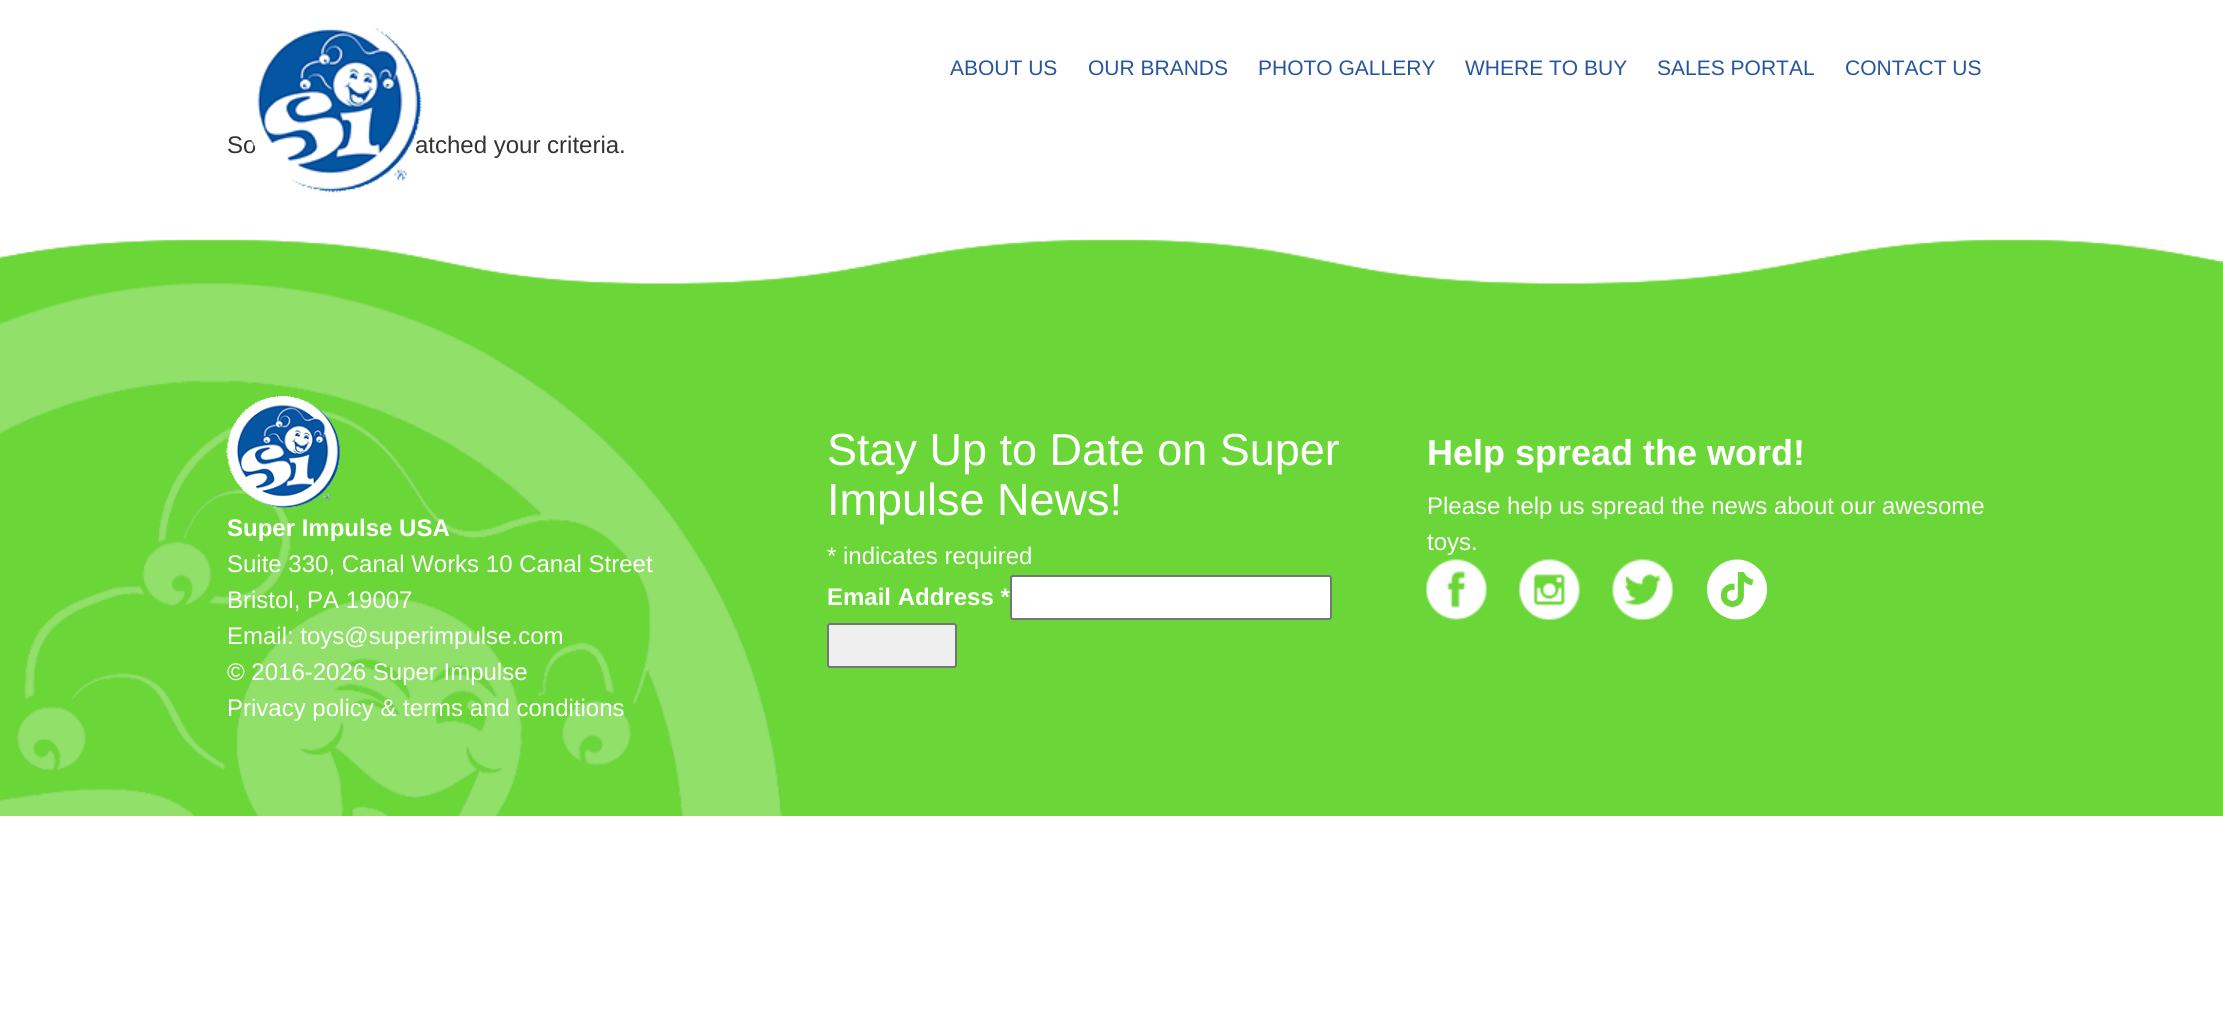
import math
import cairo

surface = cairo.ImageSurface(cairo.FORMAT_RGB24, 2223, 1015)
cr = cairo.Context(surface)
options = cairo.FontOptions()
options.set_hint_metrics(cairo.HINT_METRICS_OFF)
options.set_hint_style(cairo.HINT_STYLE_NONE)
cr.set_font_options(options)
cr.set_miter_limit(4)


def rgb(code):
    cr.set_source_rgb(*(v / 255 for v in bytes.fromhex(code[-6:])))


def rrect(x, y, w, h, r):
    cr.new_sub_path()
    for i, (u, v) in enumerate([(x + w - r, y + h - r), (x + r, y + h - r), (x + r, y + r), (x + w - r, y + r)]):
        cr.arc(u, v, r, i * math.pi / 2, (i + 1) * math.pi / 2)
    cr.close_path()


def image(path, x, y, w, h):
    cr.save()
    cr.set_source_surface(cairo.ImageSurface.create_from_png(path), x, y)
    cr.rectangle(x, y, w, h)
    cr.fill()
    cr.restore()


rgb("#ffffff")
cr.paint()
image("img/2.png", 0, 239, 2223, 577)
rgb("#ffffff")
rrect(1011, 576, 320, 43, 2)
cr.fill_preserve()
rgb("#767676")
cr.stroke()
rgb("#efefef")
rrect(828, 624, 128, 43, 2)
cr.fill_preserve()
rgb("#767676")
cr.stroke()
image("img/3.png", 1426, 559, 61, 61)
image("img/4.png", 1519, 559, 61, 61)
image("img/5.png", 1612, 559, 61, 61)
image("img/6.png", 1707, 559, 60, 61)
image("img/7.png", 226, 396, 115, 113)
cr.select_font_face("Liberation Sans")
cr.set_font_size(21)
rgb("#26559d")
for x, y, s in [
    (950, 75, "ABOUT US"),
    (1088, 75, "OUR BRANDS"),
    (1258, 75, "PHOTO GALLERY"),
    (1465, 75, "WHERE TO BUY"),
    (1657, 75, "SALES PORTAL"),
    (1845, 75, "CONTACT US"),
]:
    cr.move_to(x, y)
    cr.show_text(s)
cr.set_font_size(24)
rgb("#333333")
cr.move_to(227, 153)
cr.show_text("So")
cr.move_to(415, 153)
cr.show_text("atched your criteria.")
image("img/1.png", 251, 27, 171, 166)
cr.set_font_size(45)
rgb("#ffffff")
cr.move_to(827, 465)
cr.show_text("Stay Up to Date on Super")
cr.move_to(827, 515)
cr.show_text("Impulse News!")
cr.set_font_size(24)
cr.move_to(827, 564)
cr.show_text("* indicates required")
cr.select_font_face("Liberation Sans", cairo.FONT_SLANT_NORMAL, cairo.FONT_WEIGHT_BOLD)
cr.move_to(827, 605)
cr.show_text("Email Address *")
cr.set_font_size(36)
cr.move_to(1427, 465)
cr.show_text("Help spread the word!")
cr.select_font_face("Liberation Sans")
cr.set_font_size(24)
cr.move_to(1427, 514)
cr.show_text("Please help us spread the news about our awesome")
cr.move_to(1427, 550)
cr.show_text("toys.")
cr.select_font_face("Liberation Sans", cairo.FONT_SLANT_NORMAL, cairo.FONT_WEIGHT_BOLD)
cr.move_to(227, 536)
cr.show_text("Super Impulse USA")
cr.select_font_face("Liberation Sans")
for x, y, s in [
    (227, 572, "Suite 330, Canal Works 10 Canal Street"),
    (227, 608, "Bristol, PA 19007"),
    (227, 644, "Email: toys@superimpulse.com"),
    (227, 680, "© 2016-2026 Super Impulse"),
    (227, 716, "Privacy policy & terms and conditions"),
]:
    cr.move_to(x, y)
    cr.show_text(s)
surface.write_to_png("page.png")
